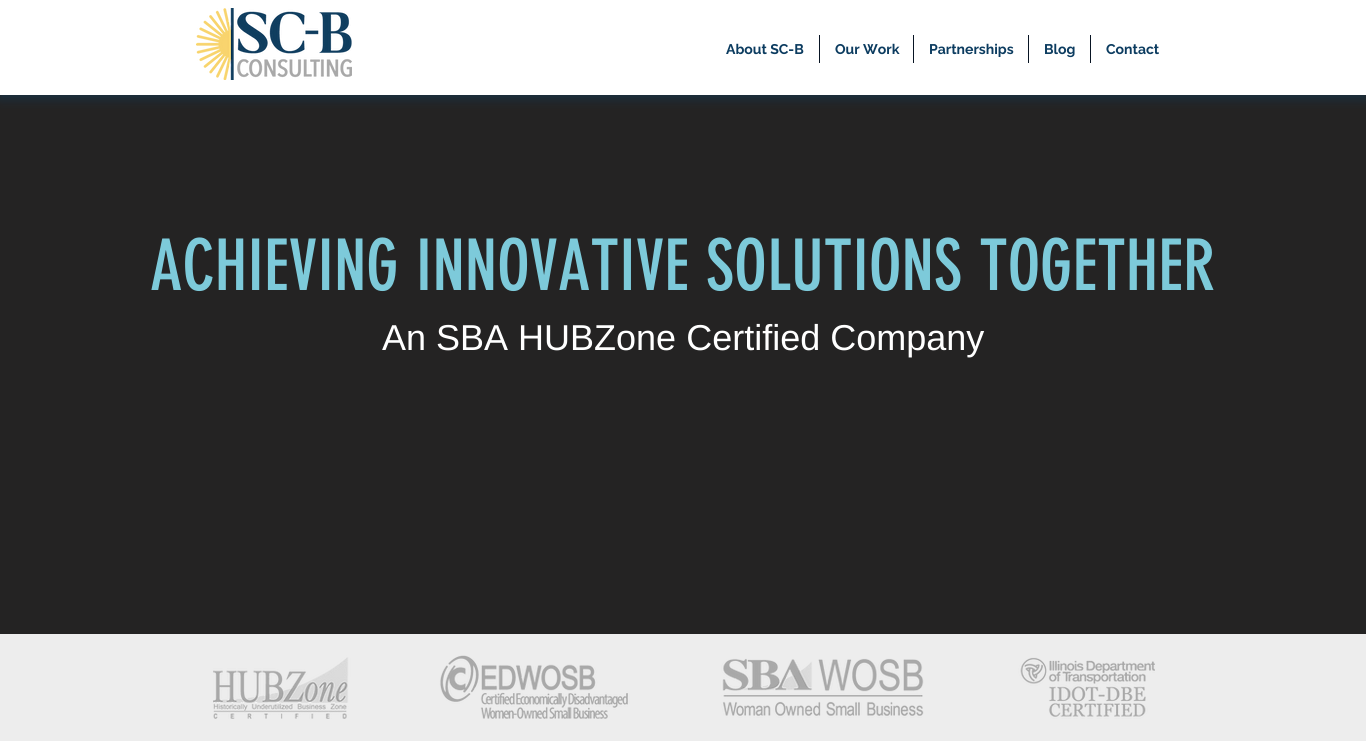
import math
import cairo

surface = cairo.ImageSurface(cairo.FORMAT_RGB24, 1366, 741)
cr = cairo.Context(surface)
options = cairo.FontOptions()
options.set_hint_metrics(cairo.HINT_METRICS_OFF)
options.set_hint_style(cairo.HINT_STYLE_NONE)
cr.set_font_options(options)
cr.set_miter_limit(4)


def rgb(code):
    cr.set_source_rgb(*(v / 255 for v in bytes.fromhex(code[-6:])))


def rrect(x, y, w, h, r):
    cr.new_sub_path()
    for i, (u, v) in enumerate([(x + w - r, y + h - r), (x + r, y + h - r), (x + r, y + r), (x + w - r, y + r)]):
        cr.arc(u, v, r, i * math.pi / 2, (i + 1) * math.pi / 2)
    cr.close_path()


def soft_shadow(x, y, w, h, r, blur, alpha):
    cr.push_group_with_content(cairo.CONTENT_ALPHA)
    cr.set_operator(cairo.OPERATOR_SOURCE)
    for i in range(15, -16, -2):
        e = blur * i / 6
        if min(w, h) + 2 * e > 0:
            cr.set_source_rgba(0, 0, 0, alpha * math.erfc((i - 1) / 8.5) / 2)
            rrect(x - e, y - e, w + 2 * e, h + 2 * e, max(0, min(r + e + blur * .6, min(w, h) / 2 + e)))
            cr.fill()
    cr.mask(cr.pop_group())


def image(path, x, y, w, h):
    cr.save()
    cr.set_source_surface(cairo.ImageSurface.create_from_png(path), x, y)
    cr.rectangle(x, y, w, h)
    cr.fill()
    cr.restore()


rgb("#ffffff")
cr.paint()
rgb("#242323")
cr.rectangle(0, 95, 1366, 539)
cr.fill()
cr.save()
cr.rectangle(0, 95, 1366, 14)
cr.clip()
rgb("#0c3c60")
soft_shadow(0, 4, 1366, 95, 0, 5.5, 0.49)
cr.restore()
image("img/1.png", 196, 8, 156, 72)
for x, y, w, h, color in [
    (819, 35, 1, 28, "#081423"),
    (913, 35, 1, 28, "#081423"),
    (1028, 35, 1, 28, "#081423"),
    (1090, 35, 1, 28, "#081423"),
    (0, 634, 1366, 107, "#ededed"),
]:
    rgb(color)
    cr.rectangle(x, y, w, h)
    cr.fill()
image("img/2.png", 213, 655, 942, 64)
cr.select_font_face("Raleway", cairo.FONT_SLANT_NORMAL, cairo.FONT_WEIGHT_BOLD)
cr.set_font_size(14)
rgb("#0c3c60")
for x, y, s in [
    (726, 54, "About SC-B"),
    (835, 54, "Our Work"),
    (929, 54, "Partnerships"),
    (1044, 54, "Blog"),
    (1106, 54, "Contact"),
]:
    cr.move_to(x, y)
    cr.show_text(s)
cr.select_font_face("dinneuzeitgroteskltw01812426")
cr.set_font_size(70)
rgb("#7dcada")
cr.move_to(150, 290)
cr.show_text("ACHIEVING INNOVATIVE SOLUTIONS TOGETHER")
cr.select_font_face("Liberation Sans")
cr.set_font_size(36)
rgb("#ffffff")
cr.move_to(382, 350)
cr.show_text("An SBA HUBZone Certified Company")
surface.write_to_png("page.png")
